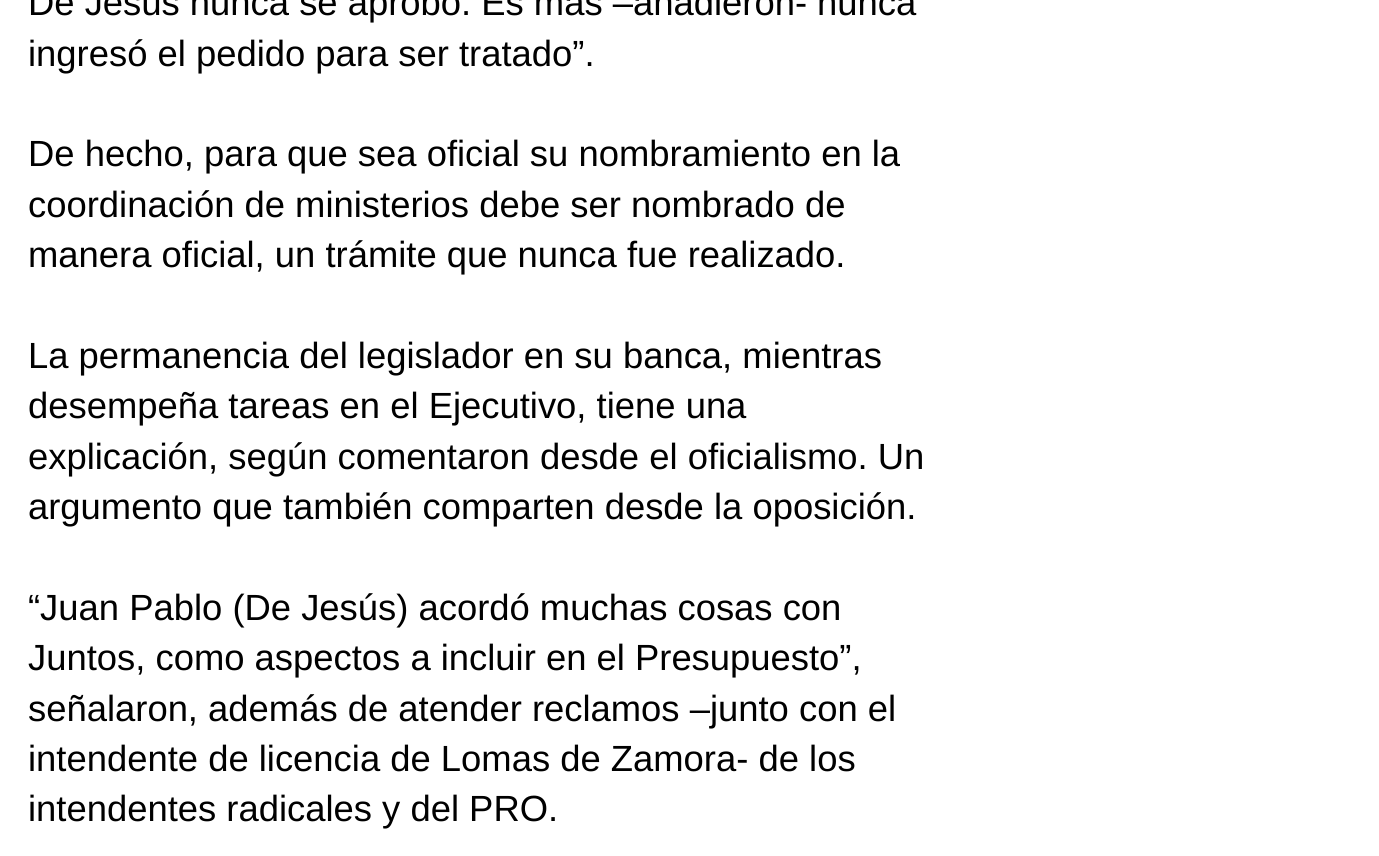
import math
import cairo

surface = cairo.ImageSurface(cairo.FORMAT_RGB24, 1379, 856)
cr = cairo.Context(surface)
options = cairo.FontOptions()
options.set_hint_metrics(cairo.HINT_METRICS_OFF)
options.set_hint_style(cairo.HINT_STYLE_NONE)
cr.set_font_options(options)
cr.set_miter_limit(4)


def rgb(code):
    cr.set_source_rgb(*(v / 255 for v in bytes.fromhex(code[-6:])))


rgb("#ffffff")
cr.paint()
cr.select_font_face("Liberation Sans")
cr.set_font_size(36.4)
rgb("#000000")
for x, y, s in [
    (28, 15, "De Jesús nunca se aprobó. Es más –añadieron- nunca"),
    (28, 66, "ingresó el pedido para ser tratado”."),
    (28, 166, "De hecho, para que sea oficial su nombramiento en la"),
    (28, 217, "coordinación de ministerios debe ser nombrado de"),
    (28, 267, "manera oficial, un trámite que nunca fue realizado."),
    (28, 368, "La permanencia del legislador en su banca, mientras"),
    (28, 418, "desempeña tareas en el Ejecutivo, tiene una"),
    (28, 469, "explicación, según comentaron desde el oficialismo. Un"),
    (28, 519, "argumento que también comparten desde la oposición."),
    (28, 620, "“Juan Pablo (De Jesús) acordó muchas cosas con"),
    (28, 670, "Juntos, como aspectos a incluir en el Presupuesto”,"),
    (28, 721, "señalaron, además de atender reclamos –junto con el"),
    (28, 771, "intendente de licencia de Lomas de Zamora- de los"),
    (28, 821, "intendentes radicales y del PRO."),
]:
    cr.move_to(x, y)
    cr.show_text(s)
surface.write_to_png("page.png")
